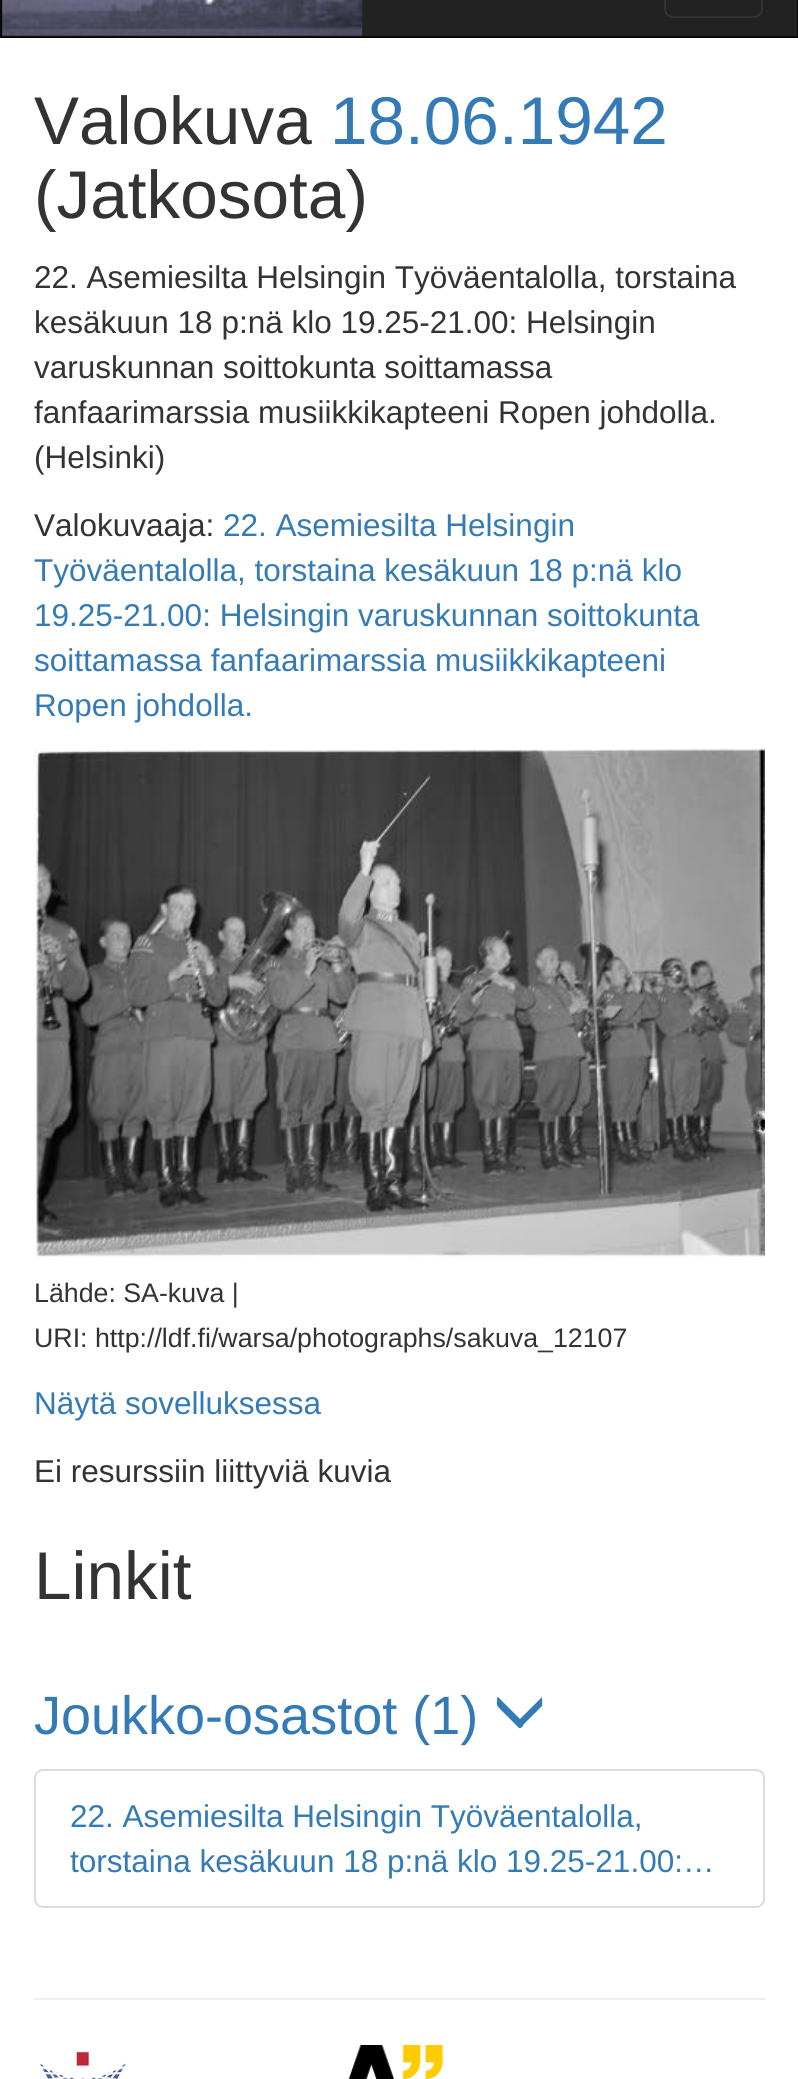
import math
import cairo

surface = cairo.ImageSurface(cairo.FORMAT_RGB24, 798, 2079)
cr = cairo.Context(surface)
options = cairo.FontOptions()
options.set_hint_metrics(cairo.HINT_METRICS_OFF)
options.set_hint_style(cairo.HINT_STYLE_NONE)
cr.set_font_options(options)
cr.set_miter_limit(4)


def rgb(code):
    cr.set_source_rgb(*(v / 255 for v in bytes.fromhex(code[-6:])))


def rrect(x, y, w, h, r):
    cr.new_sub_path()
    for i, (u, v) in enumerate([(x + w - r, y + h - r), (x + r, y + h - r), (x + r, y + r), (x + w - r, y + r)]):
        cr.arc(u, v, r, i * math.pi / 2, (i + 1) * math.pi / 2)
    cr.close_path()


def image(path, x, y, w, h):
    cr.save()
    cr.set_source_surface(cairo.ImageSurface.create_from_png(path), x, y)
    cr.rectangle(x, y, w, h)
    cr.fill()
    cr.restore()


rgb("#ffffff")
cr.paint()
rgb("#222222")
cr.rectangle(1, -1, 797, 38)
cr.fill_preserve()
rgb("#090909")
cr.stroke()
image("img/1.png", 2, 0, 361, 36)
rrect(665, -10, 97, 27, 8)
rgb("#333333")
cr.stroke()
image("img/2.png", 34, 749, 731, 508)
rgb("#337ab7")
cr.new_path()
cr.move_to(541, 1698)
cr.curve_to(543, 1695, 542, 1706, 542, 1706)
cr.line_to(524, 1724)
cr.curve_to(523, 1726, 521, 1729, 519, 1728)
cr.line_to(501, 1710)
cr.curve_to(496, 1705, 497, 1706, 497, 1698)
cr.curve_to(497, 1698, 498, 1697, 498, 1697)
cr.line_to(520, 1719)
cr.close_path()
cr.fill()
rrect(35, 1770, 729, 137, 8)
rgb("#dddddd")
cr.stroke()
rgb("#eeeeee")
cr.rectangle(34, 1998, 731, 2)
cr.fill()
image("img/3.png", 39, 2051, 87, 28)
image("img/4.png", 348, 2045, 96, 34)
cr.select_font_face("Liberation Sans")
cr.set_font_size(67.5)
rgb("#333333")
cr.move_to(34, 144)
cr.show_text("Valokuva")
rgb("#337ab7")
cr.move_to(330, 144)
cr.show_text("18.06.1942")
rgb("#333333")
cr.move_to(34, 218)
cr.show_text("(Jatkosota)")
cr.set_font_size(31.5)
for x, y, s in [
    (34, 288, "22. Asemiesilta Helsingin Työväentalolla, torstaina"),
    (34, 333, "kesäkuun 18 p:nä klo 19.25-21.00: Helsingin"),
    (34, 378, "varuskunnan soittokunta soittamassa"),
    (34, 423, "fanfaarimarssia musiikkikapteeni Ropen johdolla."),
    (34, 468, "(Helsinki)"),
    (34, 536, "Valokuvaaja:"),
]:
    cr.move_to(x, y)
    cr.show_text(s)
rgb("#337ab7")
for x, y, s in [
    (223, 536, "22. Asemiesilta Helsingin"),
    (34, 581, "Työväentalolla, torstaina kesäkuun 18 p:nä klo"),
    (34, 626, "19.25-21.00: Helsingin varuskunnan soittokunta"),
    (34, 671, "soittamassa fanfaarimarssia musiikkikapteeni"),
    (34, 716, "Ropen johdolla."),
]:
    cr.move_to(x, y)
    cr.show_text(s)
cr.set_font_size(26.75)
rgb("#333333")
cr.move_to(34, 1302)
cr.show_text("Lähde: SA-kuva |")
cr.move_to(34, 1347)
cr.show_text("URI: http://ldf.fi/warsa/photographs/sakuva_12107")
cr.set_font_size(31.5)
rgb("#337ab7")
cr.move_to(34, 1414)
cr.show_text("Näytä sovelluksessa")
rgb("#333333")
cr.move_to(34, 1482)
cr.show_text("Ei resurssiin liittyviä kuvia")
cr.set_font_size(67.5)
cr.move_to(34, 1599)
cr.show_text("Linkit")
cr.set_font_size(54)
rgb("#337ab7")
cr.move_to(34, 1734)
cr.show_text("Joukko-osastot (1)")
cr.set_font_size(31.5)
cr.move_to(70, 1827)
cr.show_text("22. Asemiesilta Helsingin Työväentalolla,")
cr.move_to(70, 1872)
cr.show_text("torstaina kesäkuun 18 p:nä klo 19.25-21.00:…")
surface.write_to_png("page.png")
